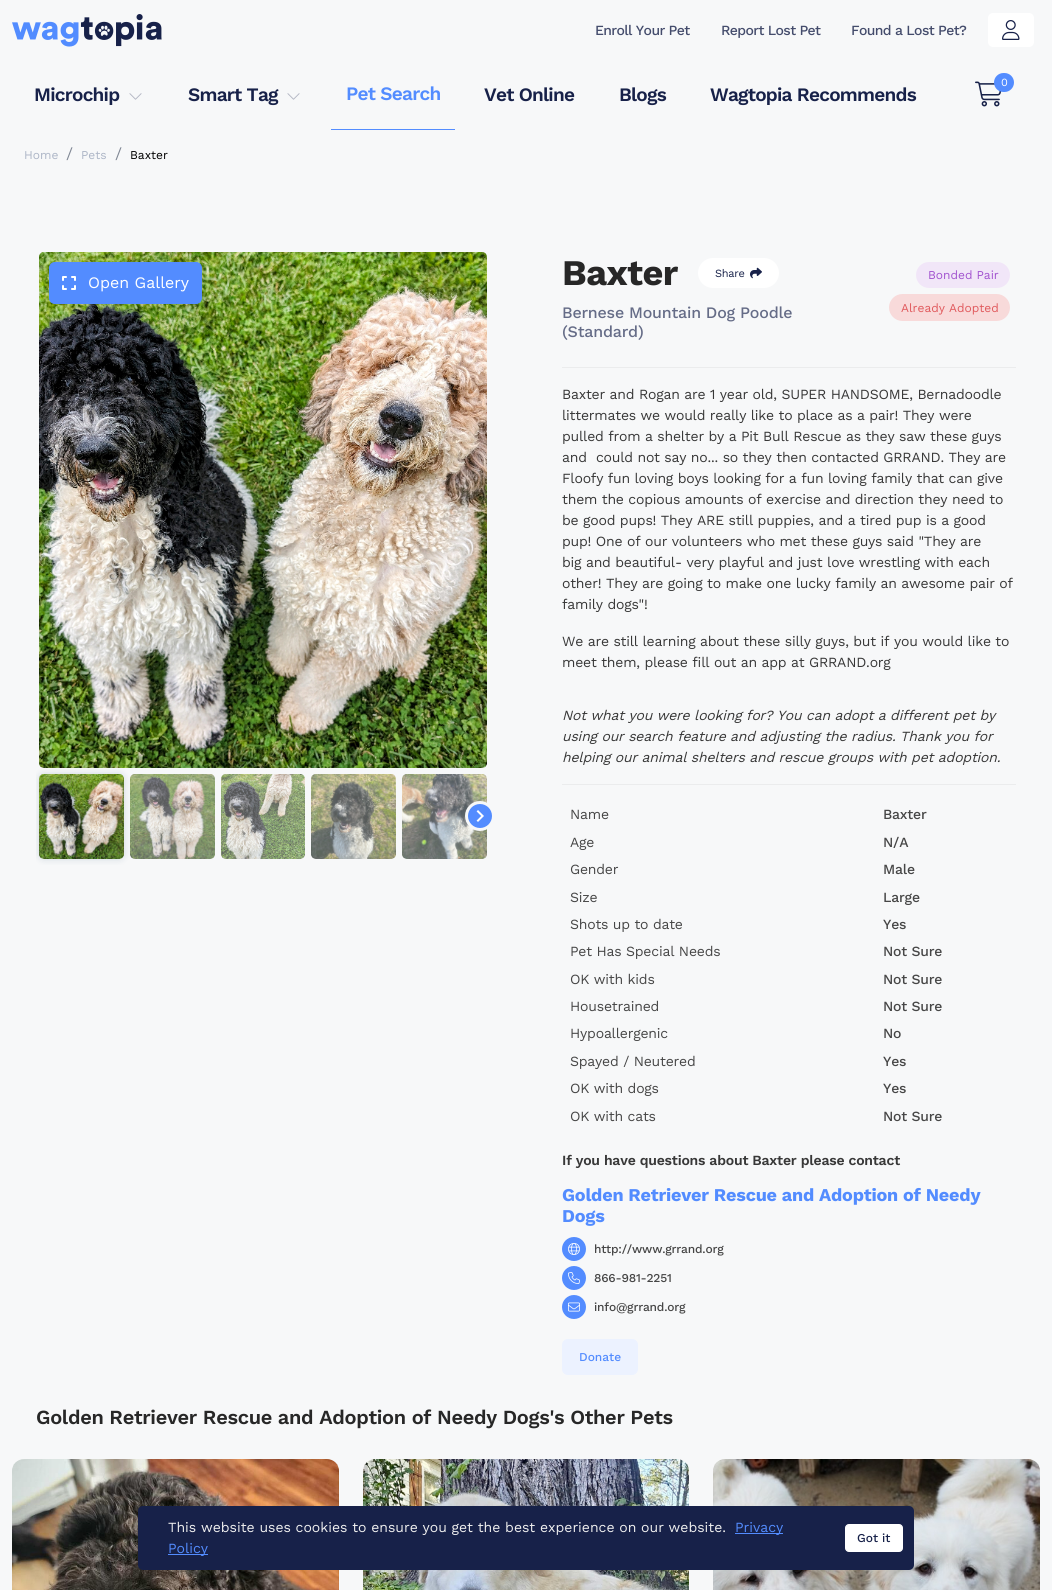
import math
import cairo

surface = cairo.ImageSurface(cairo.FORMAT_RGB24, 1052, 1590)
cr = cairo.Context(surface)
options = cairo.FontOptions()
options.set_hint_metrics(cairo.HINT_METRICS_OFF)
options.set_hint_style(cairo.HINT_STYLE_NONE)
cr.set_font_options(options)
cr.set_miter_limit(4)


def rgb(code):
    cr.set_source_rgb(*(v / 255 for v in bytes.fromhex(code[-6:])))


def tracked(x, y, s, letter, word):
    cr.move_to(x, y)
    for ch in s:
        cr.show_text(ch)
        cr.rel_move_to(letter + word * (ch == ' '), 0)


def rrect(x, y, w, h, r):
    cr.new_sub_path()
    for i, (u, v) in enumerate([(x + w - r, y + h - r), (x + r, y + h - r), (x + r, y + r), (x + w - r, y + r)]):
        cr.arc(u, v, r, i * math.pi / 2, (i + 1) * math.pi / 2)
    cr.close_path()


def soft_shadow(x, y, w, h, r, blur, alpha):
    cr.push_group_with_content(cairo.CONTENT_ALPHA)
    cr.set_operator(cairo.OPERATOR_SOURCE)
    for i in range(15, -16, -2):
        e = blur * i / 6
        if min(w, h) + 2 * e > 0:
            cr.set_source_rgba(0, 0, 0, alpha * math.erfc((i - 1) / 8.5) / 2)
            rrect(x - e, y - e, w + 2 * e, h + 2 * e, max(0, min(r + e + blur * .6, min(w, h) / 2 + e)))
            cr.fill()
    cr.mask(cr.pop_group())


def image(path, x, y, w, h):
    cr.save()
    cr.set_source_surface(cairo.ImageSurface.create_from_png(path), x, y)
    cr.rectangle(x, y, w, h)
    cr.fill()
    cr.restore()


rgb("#f7f8f9")
cr.paint()
image("img/1.png", 12, 14, 150, 33)
rgb("#ffffff")
rrect(988, 13, 46, 34, 5)
cr.fill()
image("img/2.png", 1002, 20, 18, 20)
image("img/3.png", 975, 81, 27, 26)
rgb("#538cff")
rrect(994, 73, 20, 19, 9.5)
cr.fill()
image("img/4.png", 129, 93, 13, 7)
image("img/4.png", 287, 93, 13, 7)
cr.rectangle(331, 129, 124, 1)
cr.fill()
image("img/5.png", 39, 252, 448, 516)
rrect(49.5, 262.5, 152, 41, 5.5)
cr.fill_preserve()
cr.set_line_width(1)
cr.stroke()
image("img/6.png", 62, 276, 14, 14)
cr.save()
cr.rectangle(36, 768, 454, 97)
cr.clip()
rgb("#032e57")
soft_shadow(39, 774, 85, 85, 5, 4, 0.15)
cr.restore()
image("img/7.png", 39, 774, 85, 85)
image("img/8.png", 130, 774, 85, 85)
image("img/9.png", 221, 774, 84, 85)
image("img/10.png", 311, 774, 85, 85)
image("img/11.png", 402, 774, 85, 85)
cr.arc(480, 816, 13.5, 0, 2 * math.pi)
cr.fill_preserve()
rgb("#f7f8f9")
cr.set_line_width(3)
cr.stroke()
image("img/12.png", 476, 810, 8, 12)
rgb("#ffffff")
rrect(698, 258, 81, 30, 15)
cr.fill()
image("img/13.png", 750, 267, 12, 12)
rgb("#f1e6f8")
rrect(916, 262, 94, 26, 13)
cr.fill()
rgb("#f8dada")
rrect(889, 294, 121, 27, 13.5)
cr.fill()
rgb("#ebeced")
cr.rectangle(562, 367, 454, 1)
cr.fill()
cr.rectangle(562, 784, 454, 1)
cr.fill()
rgb("#538cff")
cr.arc(574, 1249, 12, 0, 2 * math.pi)
cr.fill()
image("img/14.png", 568, 1243, 12, 12)
cr.arc(574, 1278, 12, 0, 2 * math.pi)
cr.fill()
image("img/15.png", 568, 1272, 12, 12)
cr.arc(574, 1307, 12, 0, 2 * math.pi)
cr.fill()
image("img/16.png", 568, 1302, 12, 10)
rgb("#ecf2ff")
rrect(562.5, 1339.5, 75, 35, 5.5)
cr.fill_preserve()
cr.set_line_width(1)
cr.stroke()
image("img/17.png", 12, 1459, 327, 131)
image("img/18.png", 363, 1459, 326, 131)
image("img/19.png", 713, 1459, 327, 131)
rgb("#172149")
rrect(138, 1506, 776, 64, 5)
cr.fill()
rgb("#538cff")
cr.rectangle(735, 1533, 48, 1)
cr.fill()
cr.rectangle(168, 1554, 40, 1)
cr.fill()
rgb("#ffffff")
rrect(845.5, 1524.5, 57, 27, 3.5)
cr.fill_preserve()
cr.stroke()
cr.select_font_face("Work Sans Medium")
cr.set_font_size(14)
rgb("#444c6c")
for x, y, s in [
    (595, 35, "Enroll Your Pet"),
    (721, 35, "Report Lost Pet"),
    (851, 35, "Found a Lost Pet?"),
]:
    tracked(x, y, s, -0.6, 0)
cr.select_font_face("Work Sans")
cr.set_font_size(11)
rgb("#ffffff")
tracked(1001, 86, "0", -0.75, 0)
cr.select_font_face("Work Sans SemiBold")
cr.set_font_size(19)
rgb("#172149")
tracked(34, 101, "Microchip", -0.75, 0)
tracked(188, 101, "Smart Tag", -0.75, 0)
rgb("#538cff")
tracked(346, 100, "Pet Search", -0.75, 0)
rgb("#172149")
for x, y, s in [
    (484, 101, "Vet Online"),
    (619, 101, "Blogs"),
    (710, 101, "Wagtopia Recommends"),
]:
    tracked(x, y, s, -0.75, 0)
cr.select_font_face("Work Sans")
cr.set_font_size(12)
rgb("#acb5c6")
cr.move_to(24, 159)
cr.show_text("Home")
cr.set_font_size(16)
rgb("#818895")
cr.move_to(66, 159)
cr.show_text("/")
cr.set_font_size(12)
rgb("#acb5c6")
cr.move_to(81, 159)
cr.show_text("Pets")
cr.set_font_size(16)
rgb("#818895")
cr.move_to(115, 159)
cr.show_text("/")
cr.set_font_size(12)
rgb("#000000")
cr.move_to(130, 159)
cr.show_text("Baxter")
cr.set_font_size(16)
rgb("#ffffff")
cr.move_to(88, 288)
cr.show_text("Open Gallery")
cr.select_font_face("Work Sans", cairo.FONT_SLANT_NORMAL, cairo.FONT_WEIGHT_BOLD)
cr.set_font_size(36)
rgb("#272727")
tracked(562, 285, "Baxter", -0.5, 0)
cr.select_font_face("Work Sans")
cr.set_font_size(11)
rgb("#172149")
tracked(715, 277, "Share", -0.25, 0)
cr.select_font_face("Work Sans Medium")
cr.set_font_size(16)
rgb("#656c87")
tracked(562, 318, "Bernese Mountain Dog Poodle", -0.2, 0)
tracked(562, 337, "(Standard)", -0.2, 0)
cr.select_font_face("Work Sans")
cr.set_font_size(12)
rgb("#a152cf")
cr.move_to(928, 279)
cr.show_text("Bonded Pair")
rgb("#e0595c")
cr.move_to(901, 312)
cr.show_text("Already Adopted")
cr.set_font_size(14)
rgb("#383838")
for x, y, s in [
    (562, 399, "Baxter and Rogan are 1 year old, SUPER HANDSOME, Bernadoodle"),
    (562, 420, "littermates we would really like to place as a pair! They were"),
    (562, 441, "pulled from a shelter by a Pit Bull Rescue as they saw these guys"),
    (562, 462, "and  could not say no... so they then contacted GRRAND. They are"),
    (562, 483, "Floofy fun loving boys looking for a fun loving family that can give"),
    (562, 504, "them the copious amounts of exercise and direction they need to"),
    (562, 525, "be good pups! They ARE still puppies, and a tired pup is a good"),
    (562, 546, "pup! One of our volunteers who met these guys said \"They are"),
    (562, 567, "big and beautiful- very playful and just love wrestling with each"),
    (562, 588, "other! They are going to make one lucky family an awesome pair of"),
    (562, 609, "family dogs\"!"),
    (562, 646, "We are still learning about these silly guys, but if you would like to"),
    (562, 667, "meet them, please fill out an app at GRRAND.org"),
]:
    tracked(x, y, s, -0.2, 0)
cr.select_font_face("Work Sans", cairo.FONT_SLANT_ITALIC)
for x, y, s in [
    (562, 720, "Not what you were looking for? You can adopt a different pet by"),
    (562, 741, "using our search feature and adjusting the radius. Thank you for"),
    (562, 762, "helping our animal shelters and rescue groups with pet adoption."),
]:
    tracked(x, y, s, -0.2, 0)
cr.select_font_face("Work Sans")
rgb("#464646")
tracked(570, 819, "Name", -0.2, 0)
cr.select_font_face("Work Sans Medium")
tracked(883, 819, "Baxter", -0.2, 0)
cr.select_font_face("Work Sans")
tracked(570, 847, "Age", -0.2, 0)
cr.select_font_face("Work Sans Medium")
tracked(883, 847, "N/A", -0.2, 0)
cr.select_font_face("Work Sans")
tracked(570, 874, "Gender", -0.2, 0)
cr.select_font_face("Work Sans Medium")
tracked(883, 874, "Male", -0.2, 0)
cr.select_font_face("Work Sans")
tracked(570, 902, "Size", -0.2, 0)
cr.select_font_face("Work Sans Medium")
tracked(883, 902, "Large", -0.2, 0)
cr.select_font_face("Work Sans")
tracked(570, 929, "Shots up to date", -0.2, 0)
cr.select_font_face("Work Sans Medium")
tracked(883, 929, "Yes", -0.2, 0)
cr.select_font_face("Work Sans")
tracked(570, 956, "Pet Has Special Needs", -0.2, 0)
cr.select_font_face("Work Sans Medium")
tracked(883, 956, "Not Sure", -0.2, 0)
cr.select_font_face("Work Sans")
tracked(570, 984, "OK with kids", -0.2, 0)
cr.select_font_face("Work Sans Medium")
tracked(883, 984, "Not Sure", -0.2, 0)
cr.select_font_face("Work Sans")
tracked(570, 1011, "Housetrained", -0.2, 0)
cr.select_font_face("Work Sans Medium")
tracked(883, 1011, "Not Sure", -0.2, 0)
cr.select_font_face("Work Sans")
tracked(570, 1038, "Hypoallergenic", -0.2, 0)
cr.select_font_face("Work Sans Medium")
tracked(883, 1038, "No", -0.2, 0)
cr.select_font_face("Work Sans")
tracked(570, 1066, "Spayed / Neutered", -0.2, 0)
cr.select_font_face("Work Sans Medium")
tracked(883, 1066, "Yes", -0.2, 0)
cr.select_font_face("Work Sans")
tracked(570, 1093, "OK with dogs", -0.2, 0)
cr.select_font_face("Work Sans Medium")
tracked(883, 1093, "Yes", -0.2, 0)
cr.select_font_face("Work Sans")
tracked(570, 1121, "OK with cats", -0.2, 0)
cr.select_font_face("Work Sans Medium")
tracked(883, 1121, "Not Sure", -0.2, 0)
cr.select_font_face("Work Sans SemiBold")
rgb("#383838")
tracked(562, 1165, "If you have questions about Baxter please contact", -0.2, 0)
cr.select_font_face("Work Sans", cairo.FONT_SLANT_NORMAL, cairo.FONT_WEIGHT_BOLD)
cr.set_font_size(18)
rgb("#538cff")
tracked(562, 1201, "Golden Retriever Rescue and Adoption of Needy", -0.2, 0)
tracked(562, 1222, "Dogs", -0.2, 0)
cr.select_font_face("Work Sans Medium")
cr.set_font_size(12)
rgb("#464646")
for x, y, s in [
    (594, 1253, "http://www.grrand.org"),
    (594, 1282, "866-981-2251"),
    (594, 1311, "info@grrand.org"),
]:
    tracked(x, y, s, -0.2, 0)
rgb("#538cff")
cr.move_to(579, 1361)
cr.show_text("Donate")
cr.select_font_face("Work Sans SemiBold")
cr.set_font_size(20)
rgb("#272727")
tracked(36, 1424, "Golden Retriever Rescue and Adoption of Needy Dogs's Other Pets", -0.3, 0)
cr.select_font_face("Work Sans")
cr.set_font_size(14)
rgb("#efefef")
cr.move_to(168, 1532)
cr.show_text("This website uses cookies to ensure you get the best experience on our website.")
rgb("#538cff")
cr.move_to(735, 1532)
cr.show_text("Privacy")
cr.move_to(168, 1553)
cr.show_text("Policy")
cr.select_font_face("Work Sans Medium")
cr.set_font_size(12)
rgb("#172149")
cr.move_to(857, 1542)
cr.show_text("Got it")
surface.write_to_png("page.png")
